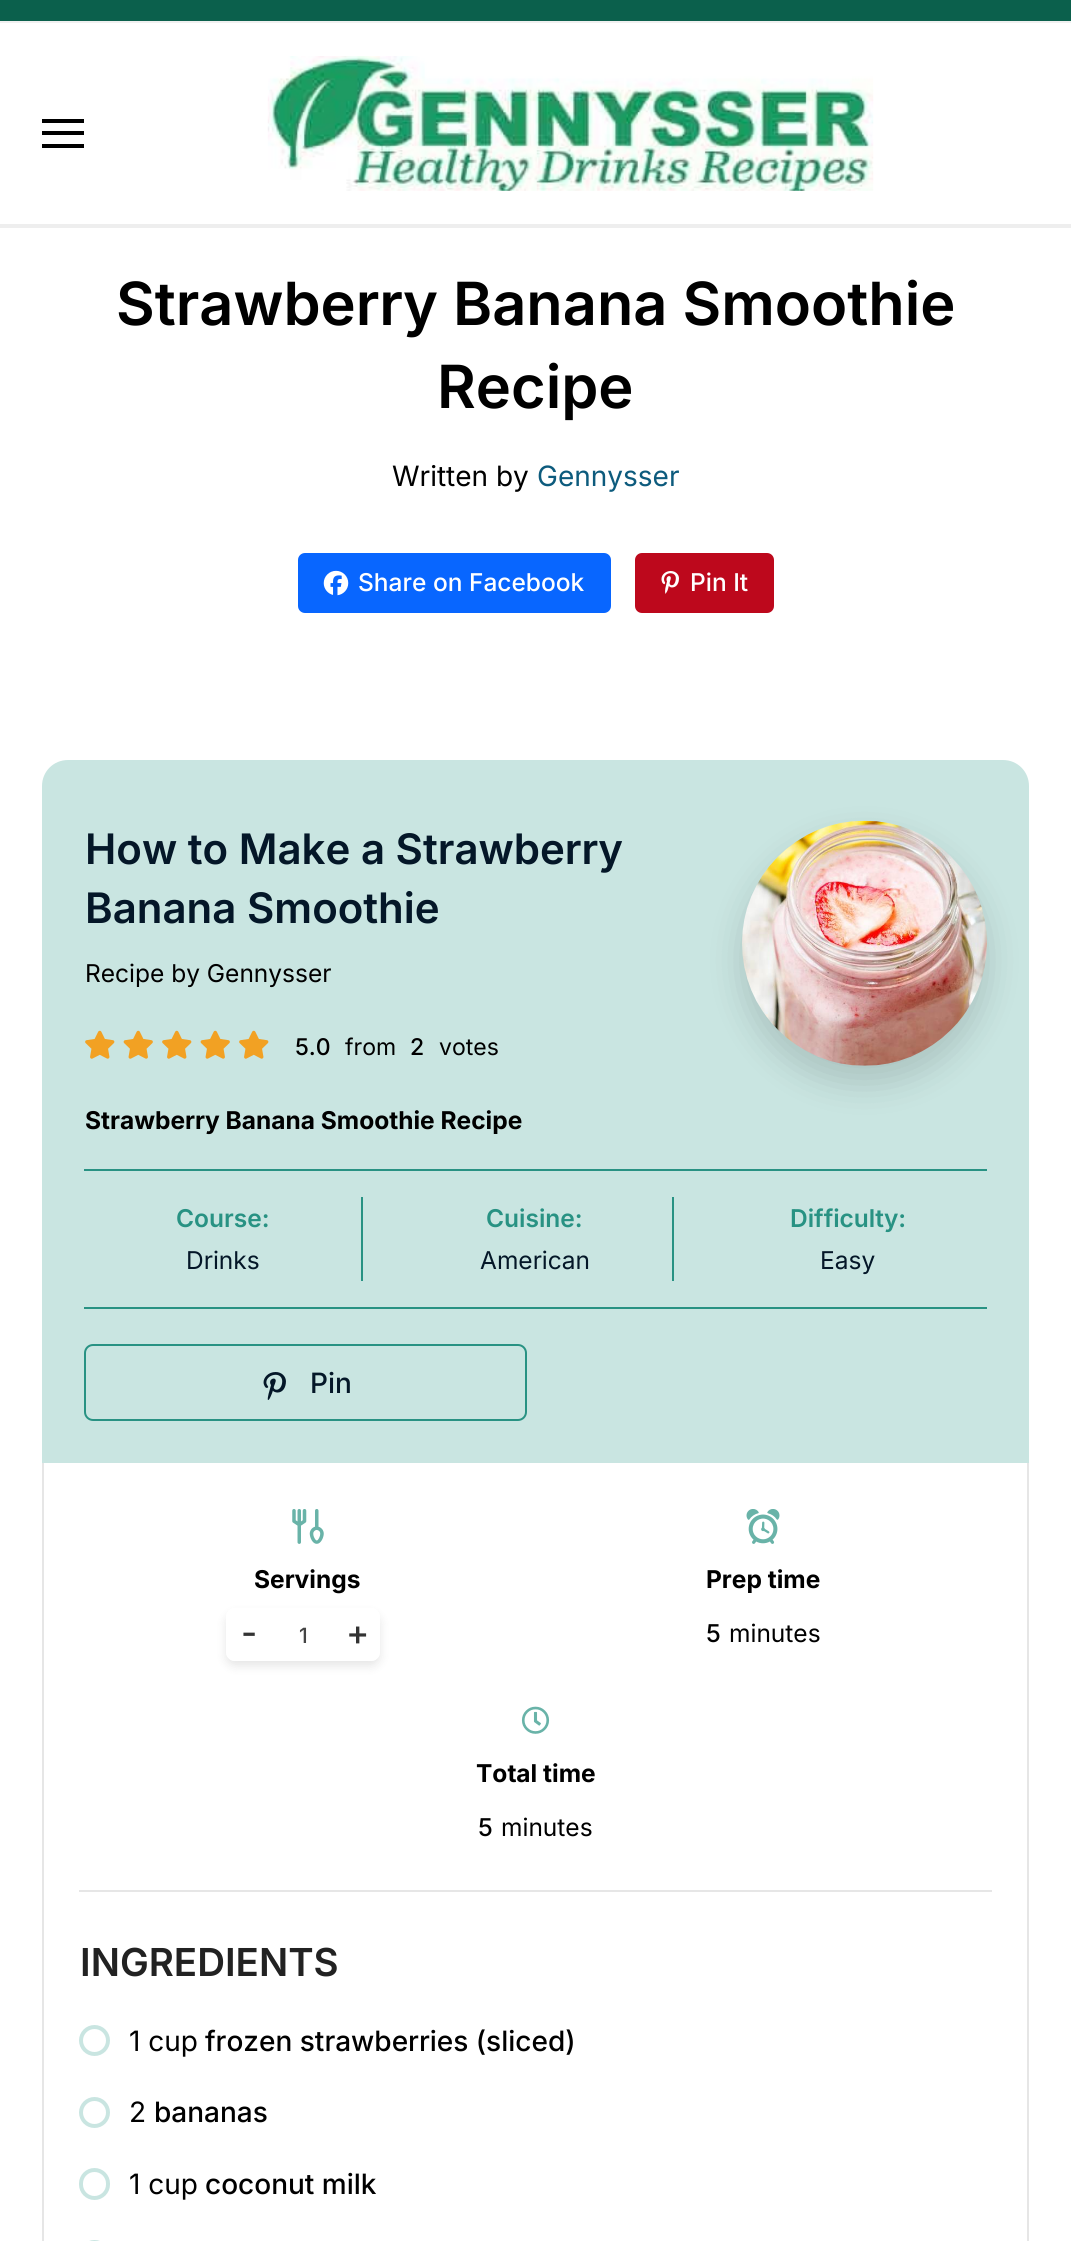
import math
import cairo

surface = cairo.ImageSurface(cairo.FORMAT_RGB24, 1071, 2241)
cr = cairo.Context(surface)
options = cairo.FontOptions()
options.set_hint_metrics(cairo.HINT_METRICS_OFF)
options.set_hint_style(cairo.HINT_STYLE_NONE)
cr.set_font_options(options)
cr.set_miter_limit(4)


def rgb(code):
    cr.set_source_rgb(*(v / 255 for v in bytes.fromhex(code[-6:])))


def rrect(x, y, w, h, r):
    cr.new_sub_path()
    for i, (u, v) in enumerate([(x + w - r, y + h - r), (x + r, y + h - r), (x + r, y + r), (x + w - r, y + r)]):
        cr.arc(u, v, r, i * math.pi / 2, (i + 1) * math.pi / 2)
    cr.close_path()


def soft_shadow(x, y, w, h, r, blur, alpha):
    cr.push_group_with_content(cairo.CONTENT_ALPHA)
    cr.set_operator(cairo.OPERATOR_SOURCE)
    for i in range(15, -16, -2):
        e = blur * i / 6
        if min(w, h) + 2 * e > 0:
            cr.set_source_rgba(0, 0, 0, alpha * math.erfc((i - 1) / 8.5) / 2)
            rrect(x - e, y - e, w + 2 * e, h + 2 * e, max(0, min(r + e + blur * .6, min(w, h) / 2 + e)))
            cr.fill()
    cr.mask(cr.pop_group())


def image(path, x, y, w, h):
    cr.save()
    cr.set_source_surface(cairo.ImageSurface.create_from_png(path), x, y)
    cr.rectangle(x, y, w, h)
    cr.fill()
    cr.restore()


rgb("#ffffff")
cr.paint()
for x, y, w, h, color in [
    (0, 0, 1071, 21, "#0b604c"),
    (0, 21, 1071, 2, "#f0f0f0"),
    (0, 224, 1071, 4, "#eeeeee"),
    (42, 119, 42, 4, "#000000"),
    (42, 131, 42, 4, "#000000"),
    (42, 144, 42, 4, "#000000"),
]:
    rgb(color)
    cr.rectangle(x, y, w, h)
    cr.fill()
image("img/1.png", 267, 56, 607, 135)
rgb("#0866ff")
rrect(298, 553, 313, 60, 7)
cr.fill()
image("img/2.png", 323, 570, 26, 26)
rgb("#bd081c")
rrect(635, 553, 139, 60, 7)
cr.fill()
image("img/3.png", 661, 571, 18, 23)
rgb("#c9e5e1")
cr.new_path()
cr.move_to(68, 760)
cr.line_to(1003, 760)
cr.curve_to(1017.5, 760, 1029, 771.5, 1029, 786)
cr.line_to(1029, 1463)
cr.line_to(42, 1463)
cr.line_to(42, 786)
cr.curve_to(42, 771.5, 53.5, 760, 68, 760)
cr.close_path()
cr.fill()
rgb("#000000")
soft_shadow(742, 838, 245, 245, 122.5, 17.5, 0.15)
image("img/4.png", 742, 820, 245, 246)
image("img/5.png", 85, 1030, 30, 29)
image("img/6.png", 123, 1030, 30, 29)
image("img/5.png", 162, 1030, 30, 29)
image("img/6.png", 200, 1030, 30, 29)
image("img/5.png", 239, 1030, 30, 29)
for x, y, w, h, color in [
    (84, 1169, 903, 2, "#289283"),
    (84, 1307, 903, 2, "#289283"),
    (361, 1197, 2, 84, "#289283"),
    (672, 1197, 2, 84, "#289283"),
]:
    rgb(color)
    cr.rectangle(x, y, w, h)
    cr.fill()
rrect(85, 1345, 441, 75, 8)
cr.stroke()
image("img/7.png", 263, 1372, 23, 28)
for x, y, w, h, color in [
    (1027, 1463, 2, 778, "#e6e6e6"),
    (42, 1463, 2, 778, "#e6e6e6"),
    (79, 1890, 913, 2, "#e6e6e6"),
]:
    rgb(color)
    cr.rectangle(x, y, w, h)
    cr.fill()
image("img/8.png", 292, 1509, 32, 35)
cr.save()
cr.set_fill_rule(cairo.FILL_RULE_EVEN_ODD)
cr.new_path()
cr.move_to(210, 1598)
cr.line_to(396, 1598)
cr.line_to(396, 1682)
cr.line_to(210, 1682)
cr.close_path()
cr.move_to(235, 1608)
cr.line_to(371, 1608)
cr.curve_to(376, 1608, 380, 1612, 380, 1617)
cr.line_to(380, 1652)
cr.curve_to(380, 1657, 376, 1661, 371, 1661)
cr.line_to(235, 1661)
cr.curve_to(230, 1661, 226, 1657, 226, 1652)
cr.line_to(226, 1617)
cr.curve_to(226, 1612, 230, 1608, 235, 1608)
cr.close_path()
cr.clip()
rgb("#000000")
soft_shadow(226, 1614, 154, 52, 9, 5, 0.1)
cr.restore()
cr.set_source_rgba(1, 1, 1, 0.5)
rrect(226, 1608, 154, 53, 9)
cr.fill()
image("img/9.png", 746, 1509, 34, 35)
image("img/10.png", 521, 1706, 29, 28)
cr.arc(94.5, 2040.5, 13.5, 0, 2 * math.pi)
rgb("#c9e5e1")
cr.set_line_width(4)
cr.stroke()
cr.arc(94.5, 2112.5, 13.5, 0, 2 * math.pi)
cr.stroke()
rrect(81, 2170, 27, 28, 13.5)
cr.stroke()
rrect(81, 2242, 27, 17, 13.5)
cr.stroke()
cr.select_font_face("Inter SemiBold")
cr.set_font_size(59.5)
rgb("#000000")
cr.move_to(116, 325)
cr.show_text("Strawberry Banana Smoothie")
cr.move_to(437, 408)
cr.show_text("Recipe")
cr.select_font_face("Inter")
cr.set_font_size(28)
cr.move_to(392, 486)
cr.show_text("Written by")
rgb("#0d5b7d")
cr.move_to(537, 486)
cr.show_text("Gennysser")
cr.select_font_face("Inter Medium")
cr.set_font_size(24.5)
rgb("#ffffff")
cr.move_to(358, 591)
cr.show_text("Share on Facebook")
cr.move_to(690, 591)
cr.show_text("Pin It")
cr.select_font_face("Inter SemiBold")
cr.set_font_size(42)
rgb("#041728")
cr.move_to(85, 864)
cr.show_text("How to Make a Strawberry")
cr.move_to(85, 923)
cr.show_text("Banana Smoothie")
cr.select_font_face("Inter")
cr.set_font_size(24.5)
rgb("#000000")
cr.move_to(85, 982)
cr.show_text("Recipe by Gennysser")
cr.select_font_face("Inter Medium")
cr.set_font_size(23)
cr.move_to(295, 1055)
cr.show_text("5.0")
cr.select_font_face("Inter")
cr.move_to(345, 1055)
cr.show_text("from")
cr.select_font_face("Inter Medium")
cr.move_to(410, 1055)
cr.show_text("2")
cr.select_font_face("Inter")
cr.move_to(439, 1055)
cr.show_text("votes")
cr.select_font_face("Inter", cairo.FONT_SLANT_NORMAL, cairo.FONT_WEIGHT_BOLD)
cr.set_font_size(24.5)
cr.move_to(85, 1129)
cr.show_text("Strawberry Banana Smoothie Recipe")
cr.select_font_face("Inter SemiBold")
rgb("#289283")
cr.move_to(176, 1227)
cr.show_text("Course:")
cr.select_font_face("Inter")
rgb("#041728")
cr.move_to(186, 1269)
cr.show_text("Drinks")
cr.select_font_face("Inter SemiBold")
rgb("#289283")
cr.move_to(486, 1227)
cr.show_text("Cuisine:")
cr.select_font_face("Inter")
rgb("#041728")
cr.move_to(480, 1269)
cr.show_text("American")
cr.select_font_face("Inter SemiBold")
rgb("#289283")
cr.move_to(790, 1227)
cr.show_text("Difficulty:")
cr.select_font_face("Inter")
rgb("#041728")
cr.move_to(820, 1269)
cr.show_text("Easy")
cr.select_font_face("Inter Medium")
cr.set_font_size(28)
cr.move_to(310, 1393)
cr.show_text("Pin")
cr.select_font_face("Inter", cairo.FONT_SLANT_NORMAL, cairo.FONT_WEIGHT_BOLD)
cr.set_font_size(24.5)
rgb("#000000")
cr.move_to(254, 1588)
cr.show_text("Servings")
cr.select_font_face("Inter Medium")
cr.set_font_size(35)
rgb("#333333")
cr.move_to(241, 1645)
cr.show_text("-")
cr.move_to(346, 1645)
cr.show_text("+")
cr.set_font_size(21)
rgb("#444444")
cr.move_to(299, 1643)
cr.show_text("1")
cr.select_font_face("Inter", cairo.FONT_SLANT_NORMAL, cairo.FONT_WEIGHT_BOLD)
cr.set_font_size(24.5)
rgb("#000000")
cr.move_to(706, 1588)
cr.show_text("Prep time")
cr.select_font_face("Inter Medium")
cr.move_to(706, 1642)
cr.show_text("5")
cr.select_font_face("Inter")
cr.move_to(729, 1642)
cr.show_text("minutes")
cr.select_font_face("Inter", cairo.FONT_SLANT_NORMAL, cairo.FONT_WEIGHT_BOLD)
cr.move_to(476, 1782)
cr.show_text("Total time")
cr.select_font_face("Inter Medium")
cr.move_to(478, 1836)
cr.show_text("5")
cr.select_font_face("Inter")
cr.move_to(501, 1836)
cr.show_text("minutes")
cr.select_font_face("Inter SemiBold")
cr.set_font_size(38.5)
rgb("#222222")
cr.move_to(80, 1976)
cr.show_text("INGREDIENTS")
cr.select_font_face("Inter")
cr.set_font_size(28)
rgb("#000000")
cr.move_to(129, 2051)
cr.show_text("1 cup")
cr.select_font_face("Inter Medium")
cr.move_to(205, 2051)
cr.show_text("frozen strawberries (sliced)")
cr.select_font_face("Inter")
cr.move_to(129, 2122)
cr.show_text("2")
cr.select_font_face("Inter Medium")
cr.move_to(154, 2122)
cr.show_text("bananas")
cr.select_font_face("Inter")
cr.move_to(129, 2194)
cr.show_text("1 cup")
cr.select_font_face("Inter Medium")
cr.move_to(205, 2194)
cr.show_text("coconut milk")
surface.write_to_png("page.png")
